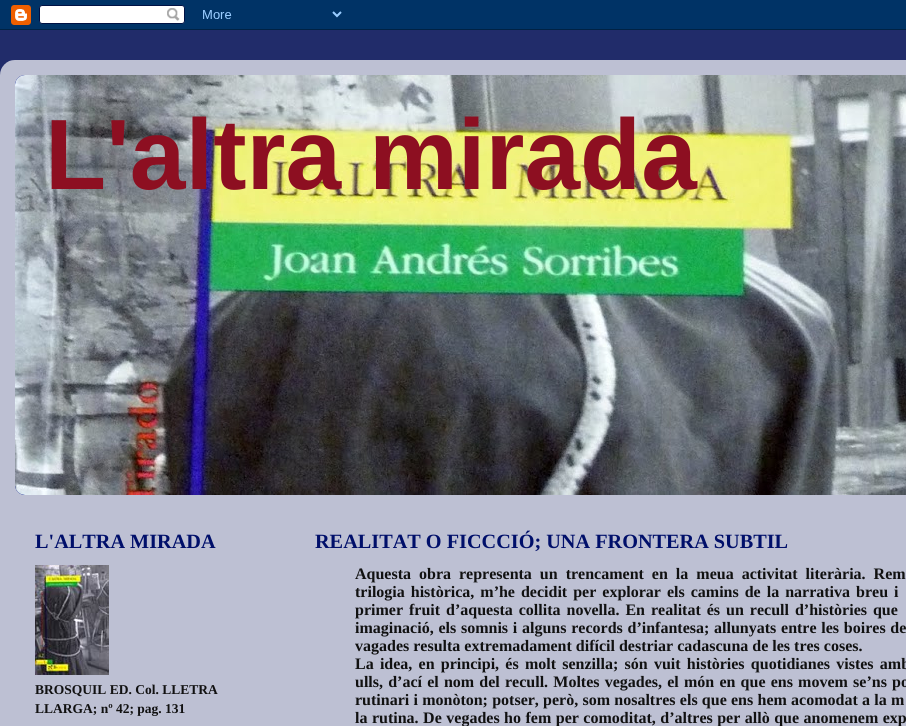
import math
import cairo

surface = cairo.ImageSurface(cairo.FORMAT_RGB24, 906, 726)
cr = cairo.Context(surface)
options = cairo.FontOptions()
options.set_hint_metrics(cairo.HINT_METRICS_OFF)
options.set_hint_style(cairo.HINT_STYLE_NONE)
cr.set_font_options(options)
cr.set_miter_limit(4)


def rgb(code):
    cr.set_source_rgb(*(v / 255 for v in bytes.fromhex(code[-6:])))


def tracked(x, y, s, letter, word):
    cr.move_to(x, y)
    for ch in s:
        cr.show_text(ch)
        cr.rel_move_to(letter + word * (ch == ' '), 0)


def rrect(x, y, w, h, r):
    cr.new_sub_path()
    for i, (u, v) in enumerate([(x + w - r, y + h - r), (x + r, y + h - r), (x + r, y + r), (x + w - r, y + r)]):
        cr.arc(u, v, r, i * math.pi / 2, (i + 1) * math.pi / 2)
    cr.close_path()


def image(path, x, y, w, h):
    cr.save()
    cr.set_source_surface(cairo.ImageSurface.create_from_png(path), x, y)
    cr.rectangle(x, y, w, h)
    cr.fill()
    cr.restore()


rgb("#212c6a")
cr.paint()
image("img/1.png", 0, 0, 906, 30)
image("img/2.png", 0, 60, 906, 666)
rgb("#0f228d")
rrect(15, 75, 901, 420, 10)
cr.fill()
image("img/3.png", 15, 75, 10, 10)
image("img/4.png", 15, 75, 891, 420)
image("img/5.png", 35, 565, 74, 110)
cr.select_font_face("Liberation Sans", cairo.FONT_SLANT_NORMAL, cairo.FONT_WEIGHT_BOLD)
cr.set_font_size(100)
rgb("#8d0f21")
cr.move_to(45, 189)
cr.show_text("L'altra mirada")
cr.select_font_face("Liberation Serif", cairo.FONT_SLANT_NORMAL, cairo.FONT_WEIGHT_BOLD)
cr.set_font_size(20.25)
rgb("#000f6a")
cr.move_to(35, 548)
cr.show_text("L'ALTRA MIRADA")
cr.set_font_size(13.5)
rgb("#111111")
cr.move_to(35, 694)
cr.show_text("BROSQUIL ED. Col. LLETRA")
cr.move_to(35, 713)
cr.show_text("LLARGA; nº 42; pag. 131")
cr.set_font_size(20.25)
rgb("#000f6a")
cr.move_to(315, 548)
cr.show_text("REALITAT O FICCCIÓ; UNA FRONTERA SUBTIL")
cr.set_font_size(16)
rgb("#111111")
tracked(355, 579, "Aquesta obra representa un trencament en la meua activitat literària. Rem", 0, 4)
tracked(355, 597, "trilogia històrica, m’he decidit per explorar els camins de la narrativa breu i", 0, 2)
tracked(355, 615, "primer fruit d’aquesta collita novella. En realitat és un recull d’històries que", 0, 2)
tracked(355, 633, "imaginació, els somnis i alguns records d’infantesa; allunyats entre les boires de", 0, 0.75)
cr.move_to(355, 651)
cr.show_text("vagades resulta extremadament difícil destriar cadascuna de les tres coses.")
tracked(355, 669, "La idea, en principi, és molt senzilla; són vuit històries quotidianes vistes amb", 0, 2.25)
tracked(355, 687, "ulls, d’ací el nom del recull. Moltes vegades, el món en que ens movem se’ns po", 0, 1.2)
tracked(355, 705, "rutinari i monòton; potser, però, som nosaltres els que ens hem acomodat a la m", 0, 0.25)
tracked(355, 723, "la rutina. De vegades ho fem per comoditat, d’altres per allò que anomenem exp", 0, 0.5)
surface.write_to_png("page.png")
